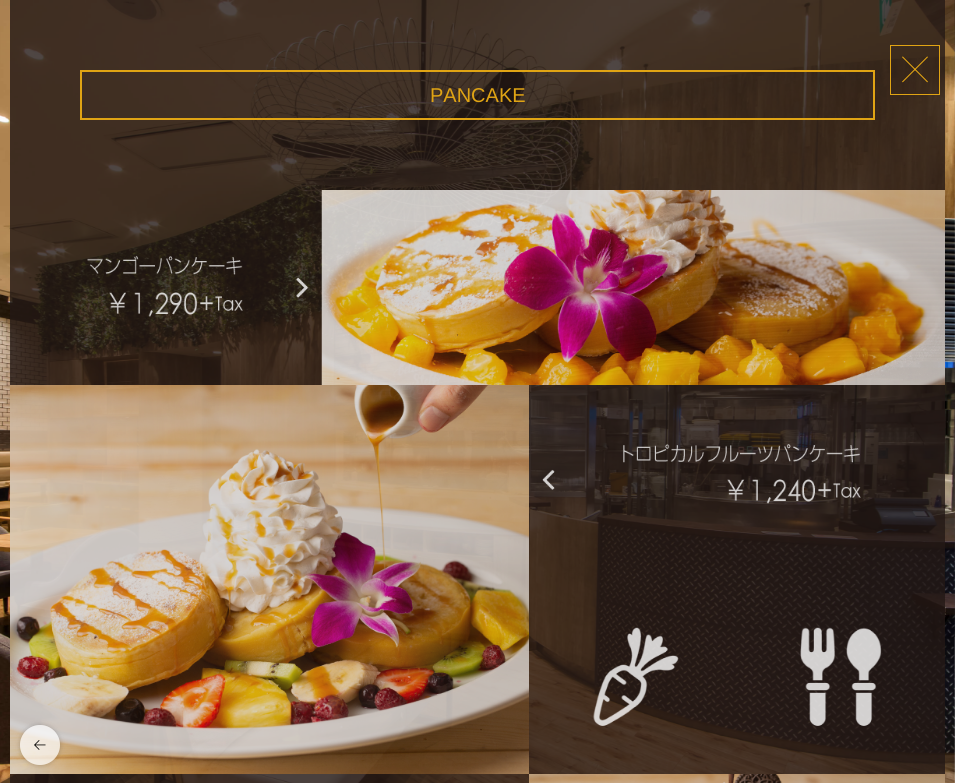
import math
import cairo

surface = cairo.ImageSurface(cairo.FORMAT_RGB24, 955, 783)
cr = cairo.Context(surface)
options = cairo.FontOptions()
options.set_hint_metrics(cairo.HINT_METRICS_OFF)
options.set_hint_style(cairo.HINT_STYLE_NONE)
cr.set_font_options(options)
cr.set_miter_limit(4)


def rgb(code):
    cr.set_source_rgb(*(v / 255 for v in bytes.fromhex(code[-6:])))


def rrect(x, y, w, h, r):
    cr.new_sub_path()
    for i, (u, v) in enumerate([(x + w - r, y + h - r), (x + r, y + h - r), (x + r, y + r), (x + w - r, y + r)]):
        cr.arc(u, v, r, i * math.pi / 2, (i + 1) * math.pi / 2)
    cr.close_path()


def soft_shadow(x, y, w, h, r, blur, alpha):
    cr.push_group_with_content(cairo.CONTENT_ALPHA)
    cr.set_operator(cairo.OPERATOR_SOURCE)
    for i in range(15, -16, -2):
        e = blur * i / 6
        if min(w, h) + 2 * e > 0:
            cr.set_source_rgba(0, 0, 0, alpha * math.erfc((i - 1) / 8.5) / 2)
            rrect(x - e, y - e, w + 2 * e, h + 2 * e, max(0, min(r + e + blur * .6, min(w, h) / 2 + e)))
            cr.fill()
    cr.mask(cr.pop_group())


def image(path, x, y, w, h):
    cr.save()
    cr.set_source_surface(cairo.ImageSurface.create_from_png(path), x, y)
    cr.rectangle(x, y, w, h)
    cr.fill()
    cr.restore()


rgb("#ffffff")
cr.paint()
image("img/1.png", 954, 0, 1, 637)
image("img/2.png", 0, 0, 955, 783)
cr.rectangle(81, 71, 793, 48)
rgb("#e0a414")
cr.stroke()
image("img/3.png", 87, 190, 858, 195)
image("img/4.png", 10, 385, 872, 389)
image("img/5.png", 529, 774, 416, 9)
image("img/6.png", 890, 45, 50, 50)
cr.save()
cr.set_fill_rule(cairo.FILL_RULE_EVEN_ODD)
cr.new_path()
cr.move_to(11, 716)
cr.line_to(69, 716)
cr.line_to(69, 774)
cr.line_to(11, 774)
cr.close_path()
cr.move_to(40, 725)
cr.curve_to(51, 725, 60, 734, 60, 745)
cr.curve_to(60, 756, 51, 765, 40, 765)
cr.curve_to(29, 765, 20, 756, 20, 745)
cr.curve_to(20, 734, 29, 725, 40, 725)
cr.close_path()
cr.clip()
rgb("#000000")
soft_shadow(20, 725, 40, 40, 20, 2.5, 0.2)
cr.restore()
cr.set_source_rgba(1, 1, 1, 0.7)
cr.arc(40, 745, 20, 0, 2 * math.pi)
cr.fill()
image("img/7.png", 34, 740, 12, 10)
cr.select_font_face("Liberation Sans")
cr.set_font_size(20)
rgb("#e0a414")
cr.move_to(430, 102)
cr.show_text("PANCAKE")
surface.write_to_png("page.png")
